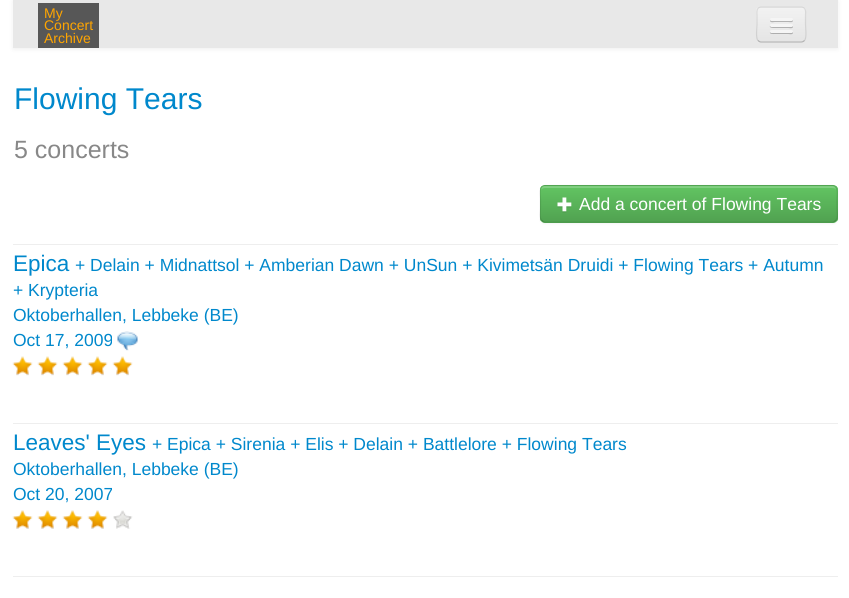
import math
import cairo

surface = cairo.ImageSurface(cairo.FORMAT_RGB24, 849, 598)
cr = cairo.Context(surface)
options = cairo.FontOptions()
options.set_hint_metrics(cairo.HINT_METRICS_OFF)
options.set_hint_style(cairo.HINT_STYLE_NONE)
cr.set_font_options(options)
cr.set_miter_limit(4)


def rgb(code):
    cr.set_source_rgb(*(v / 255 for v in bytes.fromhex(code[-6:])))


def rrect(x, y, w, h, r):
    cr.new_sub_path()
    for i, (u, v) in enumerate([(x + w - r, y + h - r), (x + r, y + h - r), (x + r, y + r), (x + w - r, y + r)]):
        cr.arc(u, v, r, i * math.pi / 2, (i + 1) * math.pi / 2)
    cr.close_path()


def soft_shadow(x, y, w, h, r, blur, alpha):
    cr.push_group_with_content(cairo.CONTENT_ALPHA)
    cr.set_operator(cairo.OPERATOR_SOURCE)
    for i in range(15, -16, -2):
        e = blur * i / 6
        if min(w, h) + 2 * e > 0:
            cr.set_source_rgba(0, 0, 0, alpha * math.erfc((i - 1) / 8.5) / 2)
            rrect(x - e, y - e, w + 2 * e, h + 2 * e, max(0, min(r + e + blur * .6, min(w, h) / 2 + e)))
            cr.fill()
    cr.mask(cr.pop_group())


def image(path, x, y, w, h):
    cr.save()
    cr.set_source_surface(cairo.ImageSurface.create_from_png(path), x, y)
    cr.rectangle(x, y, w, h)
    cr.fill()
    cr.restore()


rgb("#ffffff")
cr.paint()
cr.save()
cr.set_fill_rule(cairo.FILL_RULE_EVEN_ODD)
cr.new_path()
cr.move_to(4, 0)
cr.line_to(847, 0)
cr.line_to(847, 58)
cr.line_to(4, 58)
cr.close_path()
cr.move_to(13, 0)
cr.line_to(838, 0)
cr.line_to(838, 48)
cr.line_to(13, 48)
cr.close_path()
cr.clip()
rgb("#000000")
soft_shadow(13, 1, 825, 48, 0, 2.5, 0.07)
cr.restore()
cr.set_source_rgba(0.902, 0.902, 0.902, 0.9)
cr.rectangle(13, 0, 825, 48)
cr.fill()
rgb("#575757")
cr.rectangle(38, 3, 61, 45)
cr.fill()
rgb("#ededed")
rrect(756, 6, 50, 37, 5)
cr.fill()
cr.save()
rrect(756, 6, 50, 37, 5)
cr.clip()
gradient = cairo.LinearGradient(781, 7.5, 781, 41)
gradient.add_color_stop_rgba(0, 0.949, 0.949, 0.949, 1)
gradient.add_color_stop_rgba(1, 0.898, 0.898, 0.898, 1)
cr.set_source(gradient)
cr.rectangle(756, 8, 50, 33)
cr.fill()
cr.restore()
cr.new_path()
cr.move_to(804.5, 40.5)
cr.curve_to(803.5, 41.5, 802.5, 42, 801, 42)
cr.line_to(761, 42)
cr.curve_to(760, 42, 759, 41.5, 758, 40.5)
cr.set_source_rgba(0, 0, 0, 0.25)
cr.set_line_width(1.2)
cr.stroke()
cr.new_path()
cr.move_to(758, 40.5)
cr.curve_to(755.5, 38, 757, 27.5, 757, 24.5)
cr.line_to(757, 15.5)
cr.curve_to(757, 12.5, 756, 8, 760.5, 7)
cr.line_to(802, 7)
cr.curve_to(806.5, 8, 805.5, 12.5, 805.5, 15.5)
cr.line_to(805.5, 24.5)
cr.curve_to(805.5, 27.5, 807, 38, 804.5, 40.5)
cr.set_source_rgba(0, 0, 0, 0.1)
cr.stroke()
rgb("#b2b2b2")
cr.new_path()
cr.move_to(770.5, 19.5)
cr.line_to(770, 21)
cr.curve_to(770.5, 23, 774, 22, 775, 22)
cr.line_to(788, 22)
cr.curve_to(789.5, 22, 793, 23, 793, 20.5)
cr.line_to(792.5, 19.5)
cr.line_to(791.5, 20)
cr.curve_to(789.5, 20.5, 771, 20.5, 770.5, 19.5)
cr.close_path()
cr.fill()
rgb("#f5f5f5")
rrect(770, 18, 23, 3, 1.5)
cr.fill()
rgb("#b0b0b0")
cr.new_path()
cr.move_to(770, 25.5)
cr.curve_to(768.5, 28.5, 774.5, 28, 775, 28)
cr.line_to(788, 28)
cr.curve_to(789, 28, 792.5, 29, 793, 27)
cr.curve_to(793, 26.5, 793, 25.5, 792.5, 25.5)
cr.line_to(791.5, 26)
cr.line_to(771, 26)
cr.close_path()
cr.fill()
rgb("#f5f5f5")
rrect(770, 24, 23, 3, 1.5)
cr.fill()
rgb("#aeaeae")
cr.new_path()
cr.move_to(770, 32)
cr.curve_to(769, 34.5, 774, 34, 775, 34)
cr.line_to(788, 34)
cr.curve_to(789, 34, 792.5, 35, 793, 33)
cr.curve_to(793, 32.5, 793, 31.5, 792.5, 31.5)
cr.curve_to(792.5, 32, 792, 32.5, 791, 32.5)
cr.line_to(771, 32.5)
cr.curve_to(771, 32.5, 770.5, 32, 770, 32)
cr.close_path()
cr.fill()
rgb("#f5f5f5")
rrect(770, 30, 23, 3, 1.5)
cr.fill()
rgb("#000000")
soft_shadow(540, 186, 298, 38, 5, 1, 0.05)
rgb("#5bb75b")
rrect(540, 185, 298, 38, 5)
cr.fill()
cr.save()
rrect(540, 185, 298, 38, 5)
cr.clip()
gradient = cairo.LinearGradient(689, 186, 689, 221)
gradient.add_color_stop_rgba(0, 0.384, 0.769, 0.384, 1)
gradient.add_color_stop_rgba(1, 0.318, 0.639, 0.318, 1)
cr.set_source(gradient)
cr.rectangle(540, 186, 298, 35)
cr.fill()
cr.restore()
rgb("#81cf81")
cr.new_path()
cr.move_to(545, 188)
cr.line_to(832, 188)
cr.curve_to(835, 188, 836, 189, 836, 191)
cr.curve_to(836, 188, 835, 186, 832, 186)
cr.line_to(545, 186)
cr.curve_to(542, 186, 541, 188, 541, 191)
cr.curve_to(541, 189, 543, 188, 545, 188)
cr.close_path()
cr.fill()
cr.new_path()
cr.move_to(835.5, 220.5)
cr.curve_to(835, 221.5, 833.5, 222, 832.5, 222)
cr.line_to(545, 222)
cr.curve_to(544, 222, 542.5, 221.5, 542, 220.5)
cr.set_source_rgba(0, 0, 0, 0.25)
cr.stroke()
cr.new_path()
cr.move_to(542, 220.5)
cr.curve_to(539, 218, 540.5, 211.5, 540.5, 208.5)
cr.line_to(540.5, 199)
cr.curve_to(540.5, 196, 538.5, 185.5, 545, 185.5)
cr.line_to(832.5, 185.5)
cr.curve_to(839, 185.5, 837, 196, 837, 199)
cr.line_to(837, 208.5)
cr.curve_to(837, 211.5, 838.5, 218, 835.5, 220.5)
cr.set_source_rgba(0, 0, 0, 0.1)
cr.stroke()
image("img/1.png", 557, 197, 15, 16)
rgb("#eeeeee")
cr.rectangle(13, 244, 825, 1)
cr.fill()
image("img/2.png", 117, 331, 21, 20)
image("img/3.png", 12, 356, 21, 20)
image("img/3.png", 37, 356, 21, 20)
image("img/4.png", 62, 356, 21, 20)
image("img/3.png", 87, 356, 21, 20)
image("img/3.png", 112, 356, 21, 20)
cr.rectangle(13, 423, 825, 1)
cr.fill()
image("img/5.png", 12, 510, 21, 19)
image("img/5.png", 37, 510, 21, 19)
image("img/6.png", 62, 510, 21, 19)
image("img/5.png", 87, 510, 21, 19)
image("img/7.png", 113, 510, 20, 19)
cr.rectangle(13, 576, 825, 1)
cr.fill()
cr.select_font_face("Liberation Sans")
cr.set_font_size(14)
rgb("#ffa500")
for x, y, s in [
    (44, 18, "My"),
    (44, 30, "Concert"),
    (44, 43, "Archive"),
]:
    cr.move_to(x, y)
    cr.show_text(s)
cr.set_font_size(30)
rgb("#0088cc")
cr.move_to(14, 109)
cr.show_text("Flowing Tears")
cr.set_font_size(25)
rgb("#888888")
cr.move_to(14, 158)
cr.show_text("5 concerts")
cr.set_font_size(17.5)
rgb("#ffffff")
cr.move_to(579, 210)
cr.show_text("Add a concert of Flowing Tears")
cr.set_font_size(22.5)
rgb("#0088cc")
cr.move_to(13, 271)
cr.show_text("Epica")
cr.set_font_size(17.5)
for x, y, s in [
    (75, 271, "+ Delain + Midnattsol + Amberian Dawn + UnSun + Kivimetsän Druidi + Flowing Tears + Autumn"),
    (13, 296, "+ Krypteria"),
    (13, 321, "Oktoberhallen, Lebbeke (BE)"),
    (13, 346, "Oct 17, 2009"),
]:
    cr.move_to(x, y)
    cr.show_text(s)
cr.set_font_size(22.5)
cr.move_to(13, 450)
cr.show_text("Leaves' Eyes")
cr.set_font_size(17.5)
for x, y, s in [
    (152, 450, "+ Epica + Sirenia + Elis + Delain + Battlelore + Flowing Tears"),
    (13, 475, "Oktoberhallen, Lebbeke (BE)"),
    (13, 500, "Oct 20, 2007"),
]:
    cr.move_to(x, y)
    cr.show_text(s)
surface.write_to_png("page.png")
